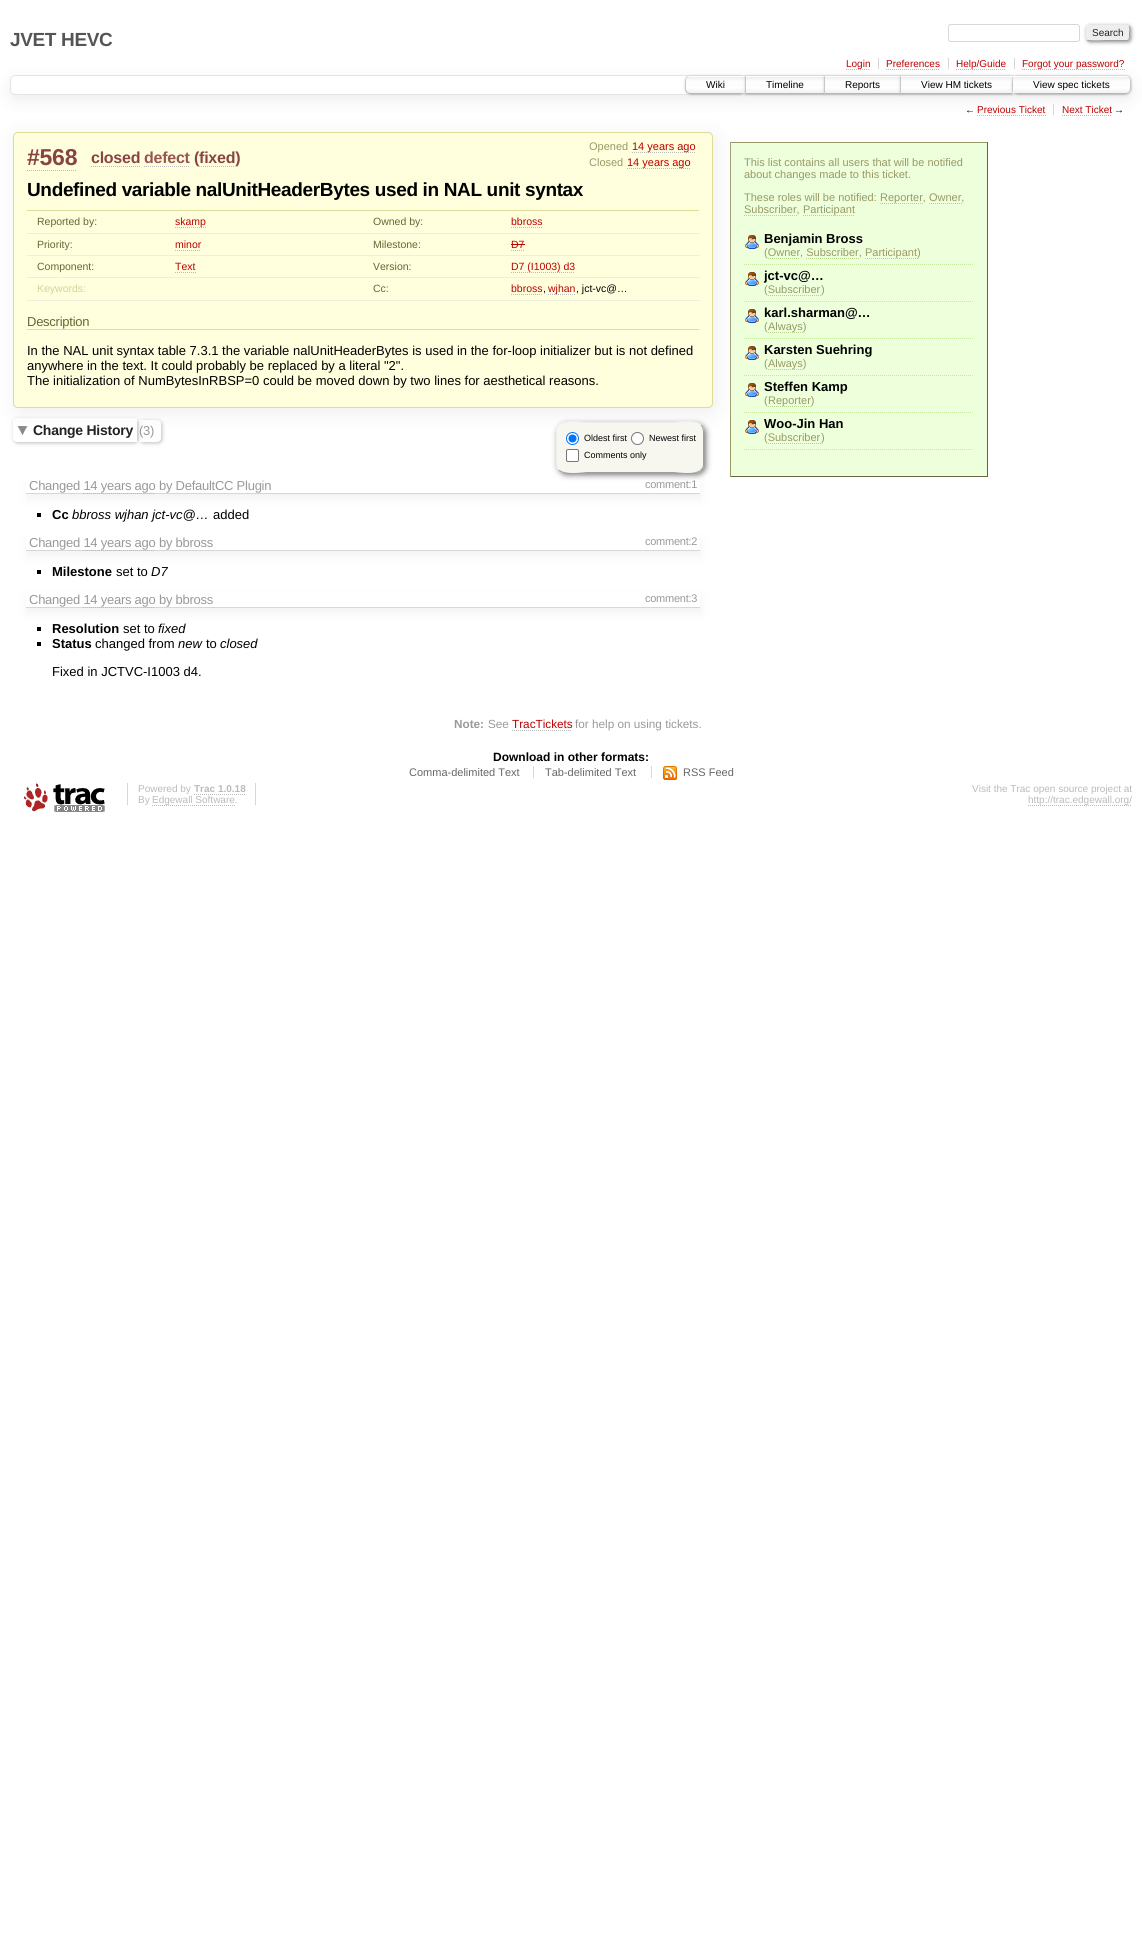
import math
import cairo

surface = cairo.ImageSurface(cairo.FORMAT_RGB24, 1142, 1950)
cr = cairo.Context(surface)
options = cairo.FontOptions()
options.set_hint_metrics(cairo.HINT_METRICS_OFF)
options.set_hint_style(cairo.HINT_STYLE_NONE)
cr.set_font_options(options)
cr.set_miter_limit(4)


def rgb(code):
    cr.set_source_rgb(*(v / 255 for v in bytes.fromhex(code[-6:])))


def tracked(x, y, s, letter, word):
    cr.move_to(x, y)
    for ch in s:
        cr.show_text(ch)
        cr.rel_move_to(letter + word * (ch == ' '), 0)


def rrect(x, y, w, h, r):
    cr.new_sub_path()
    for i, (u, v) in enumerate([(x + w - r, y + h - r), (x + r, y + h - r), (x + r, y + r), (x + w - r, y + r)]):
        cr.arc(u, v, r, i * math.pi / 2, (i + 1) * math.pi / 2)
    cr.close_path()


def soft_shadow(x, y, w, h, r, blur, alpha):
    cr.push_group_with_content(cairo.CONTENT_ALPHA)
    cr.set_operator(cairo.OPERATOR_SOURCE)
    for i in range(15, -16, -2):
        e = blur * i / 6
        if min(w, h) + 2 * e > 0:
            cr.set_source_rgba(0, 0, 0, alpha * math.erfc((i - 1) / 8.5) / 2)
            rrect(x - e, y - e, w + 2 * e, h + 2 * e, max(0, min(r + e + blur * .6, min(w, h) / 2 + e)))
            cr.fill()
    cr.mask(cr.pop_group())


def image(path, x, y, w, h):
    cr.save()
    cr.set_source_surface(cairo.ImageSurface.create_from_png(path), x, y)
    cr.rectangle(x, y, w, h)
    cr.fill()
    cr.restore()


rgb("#ffffff")
cr.paint()
rrect(948.5, 24.5, 131, 17, 2.5)
rgb("#d7d7d7")
cr.set_line_width(1)
cr.stroke()
rgb("#888888")
soft_shadow(1087, 26, 44, 16, 3, 2, 1)
rgb("#eeeeee")
rrect(1086, 25, 44, 16, 3)
cr.fill()
cr.new_path()
cr.move_to(1129, 26)
cr.curve_to(1130.5, 28, 1129.5, 31, 1129.5, 33)
cr.curve_to(1129.5, 41.5, 1130, 40.5, 1120.5, 40.5)
cr.line_to(1108, 40.5)
cr.curve_to(1105, 40.5, 1089, 41.5, 1087, 40)
rgb("#9f9f9f")
cr.stroke()
cr.new_path()
cr.move_to(1087, 40)
cr.curve_to(1085.5, 38, 1086.5, 35, 1086.5, 33)
cr.curve_to(1086.5, 24.5, 1086, 25.5, 1095.5, 25.5)
cr.line_to(1108, 25.5)
cr.curve_to(1111, 25.5, 1127, 24.5, 1129, 26)
rgb("#eeeeee")
cr.stroke()
cr.save()
cr.set_fill_rule(cairo.FILL_RULE_EVEN_ODD)
cr.new_path()
cr.move_to(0, 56)
cr.line_to(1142, 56)
cr.line_to(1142, 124)
cr.line_to(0, 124)
cr.close_path()
cr.move_to(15, 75)
cr.line_to(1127, 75)
cr.curve_to(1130, 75, 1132, 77, 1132, 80)
cr.line_to(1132, 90)
cr.curve_to(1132, 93, 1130, 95, 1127, 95)
cr.line_to(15, 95)
cr.curve_to(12, 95, 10, 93, 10, 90)
cr.line_to(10, 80)
cr.curve_to(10, 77, 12, 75, 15, 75)
cr.close_path()
cr.clip()
rgb("#eeeeee")
soft_shadow(10, 80, 1122, 20, 5, 7.5, 1)
cr.restore()
rgb("#d7d7d7")
cr.rectangle(878, 58, 1, 11)
cr.fill()
cr.new_path()
cr.move_to(846, 69.5)
cr.line_to(870, 69.5)
rgb("#bbbbbb")
cr.set_dash([1, 1])
cr.stroke()
rgb("#d7d7d7")
cr.rectangle(948, 58, 1, 11)
cr.fill()
cr.new_path()
cr.move_to(886, 69.5)
cr.line_to(940, 69.5)
rgb("#bbbbbb")
cr.stroke()
rgb("#d7d7d7")
cr.rectangle(1014, 58, 1, 11)
cr.fill()
cr.new_path()
cr.move_to(956, 69.5)
cr.line_to(1006, 69.5)
rgb("#bbbbbb")
cr.stroke()
cr.new_path()
cr.move_to(1022, 69.5)
cr.line_to(1125, 69.5)
cr.stroke()
rrect(10.5, 75.5, 1121, 19, 4.5)
rgb("#e4e4e4")
cr.set_dash([])
cr.stroke()
rgb("#ffffff")
cr.new_path()
cr.move_to(690, 75)
cr.line_to(746, 75)
cr.line_to(746, 94)
cr.line_to(690, 94)
cr.curve_to(687, 94, 685, 92, 685, 89)
cr.line_to(685, 80)
cr.curve_to(685, 77, 687, 75, 690, 75)
cr.close_path()
cr.fill()
image("img/1.png", 685, 77, 60, 17)
cr.new_path()
cr.move_to(690, 75.5)
cr.line_to(745.5, 75.5)
cr.line_to(745.5, 93.5)
cr.line_to(690, 93.5)
cr.curve_to(687.5, 93.5, 685.5, 91.5, 685.5, 89)
cr.line_to(685.5, 80)
cr.curve_to(685.5, 77.5, 687.5, 75.5, 690, 75.5)
cr.close_path()
rgb("#e4e4e4")
cr.stroke()
cr.save()
cr.set_fill_rule(cairo.FILL_RULE_EVEN_ODD)
cr.new_path()
cr.move_to(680, 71)
cr.line_to(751, 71)
cr.line_to(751, 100)
cr.line_to(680, 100)
cr.close_path()
cr.move_to(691, 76)
cr.line_to(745, 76)
cr.line_to(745, 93)
cr.line_to(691, 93)
cr.curve_to(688, 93, 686, 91, 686, 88)
cr.line_to(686, 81)
cr.curve_to(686, 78, 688, 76, 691, 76)
cr.close_path()
cr.clip()
rgb("#999999")
soft_shadow(686, 77, 59, 17, 5, 1.5, 1)
cr.restore()
rgb("#ffffff")
cr.rectangle(746, 78, 2, 15)
cr.fill()
image("img/2.png", 746, 77, 78, 16)
cr.rectangle(745.5, 75.5, 79, 18)
rgb("#e4e4e4")
cr.stroke()
cr.save()
cr.set_fill_rule(cairo.FILL_RULE_EVEN_ODD)
cr.new_path()
cr.move_to(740, 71)
cr.line_to(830, 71)
cr.line_to(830, 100)
cr.line_to(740, 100)
cr.close_path()
cr.move_to(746, 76)
cr.line_to(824, 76)
cr.line_to(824, 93)
cr.line_to(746, 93)
cr.close_path()
cr.clip()
rgb("#999999")
soft_shadow(746, 77, 78, 17, 0, 1.5, 1)
cr.restore()
rgb("#ffffff")
cr.rectangle(825, 76, 2, 17)
cr.fill()
image("img/3.png", 825, 77, 75, 16)
cr.rectangle(824.5, 75.5, 76, 18)
rgb("#e4e4e4")
cr.stroke()
cr.save()
cr.set_fill_rule(cairo.FILL_RULE_EVEN_ODD)
cr.new_path()
cr.move_to(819, 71)
cr.line_to(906, 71)
cr.line_to(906, 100)
cr.line_to(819, 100)
cr.close_path()
cr.move_to(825, 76)
cr.line_to(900, 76)
cr.line_to(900, 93)
cr.line_to(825, 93)
cr.close_path()
cr.clip()
rgb("#999999")
soft_shadow(825, 77, 75, 17, 0, 1.5, 1)
cr.restore()
rgb("#ffffff")
cr.rectangle(901, 76, 2, 17)
cr.fill()
image("img/4.png", 901, 77, 111, 16)
cr.rectangle(900.5, 75.5, 112, 18)
rgb("#e4e4e4")
cr.stroke()
cr.save()
cr.set_fill_rule(cairo.FILL_RULE_EVEN_ODD)
cr.new_path()
cr.move_to(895, 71)
cr.line_to(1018, 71)
cr.line_to(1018, 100)
cr.line_to(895, 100)
cr.close_path()
cr.move_to(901, 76)
cr.line_to(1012, 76)
cr.line_to(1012, 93)
cr.line_to(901, 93)
cr.close_path()
cr.clip()
rgb("#999999")
soft_shadow(901, 77, 111, 17, 0, 1.5, 1)
cr.restore()
rgb("#ffffff")
cr.new_path()
cr.move_to(1012, 75)
cr.line_to(1126, 75)
cr.curve_to(1129, 75, 1131, 77, 1131, 80)
cr.line_to(1131, 89)
cr.curve_to(1131, 92, 1129, 94, 1126, 94)
cr.line_to(1012, 94)
cr.close_path()
cr.fill()
image("img/5.png", 1013, 77, 118, 17)
cr.new_path()
cr.move_to(1012.5, 75.5)
cr.line_to(1126, 75.5)
cr.curve_to(1128.5, 75.5, 1130.5, 77.5, 1130.5, 80)
cr.line_to(1130.5, 89)
cr.curve_to(1130.5, 91.5, 1128.5, 93.5, 1126, 93.5)
cr.line_to(1012.5, 93.5)
cr.close_path()
rgb("#e4e4e4")
cr.stroke()
cr.save()
cr.set_fill_rule(cairo.FILL_RULE_EVEN_ODD)
cr.new_path()
cr.move_to(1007, 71)
cr.line_to(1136, 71)
cr.line_to(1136, 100)
cr.line_to(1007, 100)
cr.close_path()
cr.move_to(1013, 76)
cr.line_to(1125, 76)
cr.curve_to(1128, 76, 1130, 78, 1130, 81)
cr.line_to(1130, 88)
cr.curve_to(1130, 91, 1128, 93, 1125, 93)
cr.line_to(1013, 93)
cr.close_path()
cr.clip()
rgb("#999999")
soft_shadow(1013, 77, 117, 17, 5, 1.5, 1)
cr.restore()
rgb("#d7d7d7")
cr.rectangle(1053, 104, 1, 11)
cr.fill()
cr.new_path()
cr.move_to(977, 115.5)
cr.line_to(1046, 115.5)
rgb("#bbbbbb")
cr.set_dash([1, 1])
cr.stroke()
cr.new_path()
cr.move_to(1062, 115.5)
cr.line_to(1112, 115.5)
cr.stroke()
cr.save()
cr.set_fill_rule(cairo.FILL_RULE_EVEN_ODD)
cr.new_path()
cr.move_to(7, 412)
cr.line_to(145, 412)
cr.line_to(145, 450)
cr.line_to(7, 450)
cr.close_path()
cr.move_to(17, 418)
cr.line_to(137, 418)
cr.line_to(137, 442)
cr.line_to(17, 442)
cr.curve_to(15, 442, 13, 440, 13, 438)
cr.line_to(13, 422)
cr.curve_to(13, 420, 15, 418, 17, 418)
cr.close_path()
cr.clip()
rgb("#bbbbbb")
soft_shadow(14, 419, 124, 24, 4, 2, 1)
cr.restore()
image("img/6.png", 17, 426, 11, 9)
for x, y, w, h, color in [
    (731, 143, 256, 333, "#edffdb"),
    (730, 142, 258, 1, "#999966"),
    (987, 142, 1, 335, "#666644"),
    (730, 476, 258, 1, "#666644"),
    (730, 142, 1, 335, "#999966"),
]:
    rgb(color)
    cr.rectangle(x, y, w, h)
    cr.fill()
cr.new_path()
cr.move_to(744, 215.5)
cr.line_to(797, 215.5)
rgb("#b0d789")
cr.stroke()
image("img/7.png", 745, 235, 14, 14)
cr.new_path()
cr.move_to(744, 264.5)
cr.line_to(974, 264.5)
rgb("#c4ec9b")
cr.stroke()
image("img/7.png", 745, 272, 14, 14)
cr.new_path()
cr.move_to(744, 301.5)
cr.line_to(974, 301.5)
cr.stroke()
image("img/7.png", 745, 309, 14, 14)
cr.new_path()
cr.move_to(744, 338.5)
cr.line_to(974, 338.5)
cr.stroke()
image("img/7.png", 745, 346, 14, 14)
cr.new_path()
cr.move_to(744, 375.5)
cr.line_to(974, 375.5)
cr.stroke()
image("img/7.png", 745, 383, 14, 14)
cr.new_path()
cr.move_to(744, 412.5)
cr.line_to(974, 412.5)
cr.stroke()
image("img/7.png", 745, 420, 14, 14)
rgb("#eeeeee")
soft_shadow(16, 136, 700, 276, 5, 10, 1)
rgb("#ffffdd")
rrect(13.5, 132.5, 699, 275, 4.5)
cr.fill_preserve()
rgb("#dddd99")
cr.set_dash([])
cr.stroke()
cr.new_path()
cr.move_to(27, 170.5)
cr.line_to(77, 170.5)
rgb("#bbbbbb")
cr.set_dash([1, 1])
cr.stroke()
cr.new_path()
cr.move_to(91, 166.5)
cr.line_to(140, 166.5)
cr.stroke()
cr.new_path()
cr.move_to(144, 166.5)
cr.line_to(189, 166.5)
cr.stroke()
cr.new_path()
cr.move_to(632, 152.5)
cr.line_to(696, 152.5)
cr.stroke()
cr.new_path()
cr.move_to(627, 168.5)
cr.line_to(691, 168.5)
cr.stroke()
rgb("#dddd99")
cr.rectangle(27, 210, 672, 1)
cr.fill()
rgb("#eeeedd")
cr.rectangle(27, 233, 673, 1)
cr.fill()
cr.new_path()
cr.move_to(175, 227.5)
cr.line_to(206, 227.5)
rgb("#bbbbbb")
cr.stroke()
cr.new_path()
cr.move_to(511, 227.5)
cr.line_to(543, 227.5)
cr.stroke()
rgb("#eeeedd")
cr.rectangle(27, 255, 673, 1)
cr.fill()
cr.new_path()
cr.move_to(175, 250.5)
cr.line_to(201, 250.5)
rgb("#bbbbbb")
cr.stroke()
cr.new_path()
cr.move_to(511, 250.5)
cr.line_to(525, 250.5)
cr.stroke()
rgb("#bb0000")
cr.rectangle(511, 244, 14, 1)
cr.fill()
rgb("#eeeedd")
cr.rectangle(27, 277, 673, 1)
cr.fill()
cr.new_path()
cr.move_to(175, 272.5)
cr.line_to(196, 272.5)
rgb("#bbbbbb")
cr.stroke()
cr.new_path()
cr.move_to(511, 272.5)
cr.line_to(575, 272.5)
cr.stroke()
rgb("#eeeedd")
cr.rectangle(27, 300, 673, 1)
cr.fill()
cr.new_path()
cr.move_to(511, 294.5)
cr.line_to(543, 294.5)
rgb("#bbbbbb")
cr.stroke()
cr.new_path()
cr.move_to(548, 294.5)
cr.line_to(576, 294.5)
cr.stroke()
rgb("#dddd99")
cr.rectangle(27, 329, 672, 1)
cr.fill()
cr.save()
cr.set_fill_rule(cairo.FILL_RULE_EVEN_ODD)
cr.new_path()
cr.move_to(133, 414)
cr.line_to(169, 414)
cr.line_to(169, 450)
cr.line_to(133, 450)
cr.close_path()
cr.move_to(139, 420)
cr.line_to(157, 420)
cr.curve_to(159, 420, 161, 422, 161, 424)
cr.line_to(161, 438)
cr.curve_to(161, 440, 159, 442, 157, 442)
cr.line_to(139, 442)
cr.close_path()
cr.clip()
rgb("#bbbbbb")
soft_shadow(140, 421, 22, 22, 4, 2, 1)
cr.restore()
rgb("#777777")
soft_shadow(558, 424, 148, 51, 9, 3, 1)
cr.save()
cr.set_fill_rule(cairo.FILL_RULE_EVEN_ODD)
cr.new_path()
cr.move_to(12, 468)
cr.line_to(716, 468)
cr.line_to(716, 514)
cr.line_to(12, 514)
cr.close_path()
cr.move_to(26, 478)
cr.line_to(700, 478)
cr.line_to(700, 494)
cr.line_to(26, 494)
cr.close_path()
cr.clip()
rgb("#f2f2f2")
soft_shadow(27, 483, 674, 16, 0, 4.5, 1)
cr.restore()
rgb("#f7f7f0")
rrect(556, 422, 148, 51, 9)
cr.fill()
cr.new_path()
cr.move_to(701, 425)
cr.curve_to(704, 428, 703.5, 432.5, 703.5, 436.5)
cr.line_to(703.5, 465.5)
cr.curve_to(701, 477.5, 678, 472.5, 673.5, 472.5)
cr.line_to(586.5, 472.5)
cr.curve_to(585, 472.5, 565, 476, 559, 470)
rgb("#9f9f9f")
cr.set_dash([])
cr.stroke()
cr.new_path()
cr.move_to(559, 470)
cr.curve_to(556, 467, 556.5, 462.5, 556.5, 458.5)
cr.line_to(556.5, 429.5)
cr.curve_to(559, 417.5, 582, 422.5, 586.5, 422.5)
cr.line_to(673.5, 422.5)
cr.curve_to(675, 422.5, 695, 419, 701, 425)
rgb("#eeeeee")
cr.stroke()
rgb("#ffffff")
cr.arc(572.5, 438.5, 6, 0, 2 * math.pi)
cr.fill_preserve()
rgb("#0075ff")
cr.stroke()
cr.arc(572.5, 438.5, 4, 0, 2 * math.pi)
cr.fill()
rgb("#ffffff")
cr.arc(637.5, 438.5, 6, 0, 2 * math.pi)
cr.fill_preserve()
rgb("#767676")
cr.stroke()
rgb("#ffffff")
rrect(566.5, 449.5, 12, 12, 1.5)
cr.fill_preserve()
rgb("#767676")
cr.stroke()
rgb("#d7d7d7")
cr.rectangle(26, 493, 674, 1)
cr.fill()
cr.new_path()
cr.move_to(83, 493.5)
cr.line_to(155, 493.5)
rgb("#bbbbbb")
cr.set_dash([1, 1])
cr.stroke()
rgb("#000000")
cr.rectangle(37, 513, 4, 4)
cr.fill()
cr.save()
cr.set_fill_rule(cairo.FILL_RULE_EVEN_ODD)
cr.new_path()
cr.move_to(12, 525)
cr.line_to(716, 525)
cr.line_to(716, 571)
cr.line_to(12, 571)
cr.close_path()
cr.move_to(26, 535)
cr.line_to(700, 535)
cr.line_to(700, 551)
cr.line_to(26, 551)
cr.close_path()
cr.clip()
rgb("#f2f2f2")
soft_shadow(27, 540, 674, 16, 0, 4.5, 1)
cr.restore()
rgb("#d7d7d7")
cr.rectangle(26, 550, 674, 1)
cr.fill()
cr.new_path()
cr.move_to(83, 550.5)
cr.line_to(155, 550.5)
rgb("#bbbbbb")
cr.stroke()
rgb("#000000")
cr.rectangle(37, 570, 4, 4)
cr.fill()
cr.save()
cr.set_fill_rule(cairo.FILL_RULE_EVEN_ODD)
cr.new_path()
cr.move_to(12, 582)
cr.line_to(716, 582)
cr.line_to(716, 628)
cr.line_to(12, 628)
cr.close_path()
cr.move_to(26, 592)
cr.line_to(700, 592)
cr.line_to(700, 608)
cr.line_to(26, 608)
cr.close_path()
cr.clip()
rgb("#f2f2f2")
soft_shadow(27, 597, 674, 16, 0, 4.5, 1)
cr.restore()
rgb("#d7d7d7")
cr.rectangle(26, 607, 674, 1)
cr.fill()
cr.new_path()
cr.move_to(83, 607.5)
cr.line_to(155, 607.5)
rgb("#bbbbbb")
cr.stroke()
rgb("#000000")
cr.rectangle(37, 627, 4, 4)
cr.fill()
cr.rectangle(37, 642, 4, 4)
cr.fill()
cr.new_path()
cr.move_to(512, 730.5)
cr.line_to(572, 730.5)
rgb("#bbbbbb")
cr.stroke()
cr.new_path()
cr.move_to(880, 203.5)
cr.line_to(923, 203.5)
rgb("#b0d789")
cr.stroke()
cr.new_path()
cr.move_to(803, 215.5)
cr.line_to(855, 215.5)
cr.stroke()
cr.new_path()
cr.move_to(865, 258.5)
cr.line_to(918, 258.5)
cr.stroke()
cr.new_path()
cr.move_to(768, 332.5)
cr.line_to(803, 332.5)
cr.stroke()
cr.new_path()
cr.move_to(768, 369.5)
cr.line_to(803, 369.5)
cr.stroke()
cr.new_path()
cr.move_to(768, 406.5)
cr.line_to(811, 406.5)
cr.stroke()
cr.new_path()
cr.move_to(744, 449.5)
cr.line_to(974, 449.5)
rgb("#c4ec9b")
cr.stroke()
rgb("#d7d7d7")
cr.rectangle(533, 766, 1, 12)
cr.fill()
cr.rectangle(651, 766, 1, 12)
cr.fill()
image("img/8.png", 663, 766, 14, 14)
image("img/9.png", 24, 783, 81, 29)
cr.rectangle(255, 783, 1, 22)
cr.fill()
cr.rectangle(127, 783, 1, 22)
cr.fill()
cr.new_path()
cr.move_to(194, 794.5)
cr.line_to(245, 794.5)
rgb("#bbbbbb")
cr.stroke()
cr.new_path()
cr.move_to(152, 805.5)
cr.line_to(235, 805.5)
cr.stroke()
cr.new_path()
cr.move_to(1028, 805.5)
cr.line_to(1132, 805.5)
cr.stroke()
cr.select_font_face("Liberation Sans", cairo.FONT_SLANT_NORMAL, cairo.FONT_WEIGHT_BOLD)
cr.set_font_size(19)
rgb("#555555")
tracked(10, 46, "JVET HEVC", -0.35, 0)
cr.select_font_face("Liberation Sans")
cr.set_font_size(10)
rgb("#222222")
cr.move_to(1092, 36)
cr.show_text("Search")
rgb("#bb0000")
for x, y, s in [
    (846, 67, "Login"),
    (886, 67, "Preferences"),
    (956, 67, "Help/Guide"),
    (1022, 67, "Forgot your password?"),
]:
    cr.move_to(x, y)
    cr.show_text(s)
rgb("#000000")
for x, y, s in [
    (706, 88, "Wiki"),
    (766, 88, "Timeline"),
    (845, 88, "Reports"),
    (921, 88, "View HM tickets"),
    (1033, 88, "View spec tickets"),
    (965, 113, "←"),
]:
    cr.move_to(x, y)
    cr.show_text(s)
rgb("#bb0000")
cr.move_to(977, 113)
cr.show_text("Previous Ticket")
cr.move_to(1062, 113)
cr.show_text("Next Ticket")
rgb("#000000")
cr.move_to(1114, 113)
cr.show_text("→")
cr.select_font_face("Liberation Sans", cairo.FONT_SLANT_NORMAL, cairo.FONT_WEIGHT_BOLD)
cr.set_font_size(23)
rgb("#884444")
tracked(27, 165, "#568", -0.25, 0)
cr.set_font_size(16)
tracked(91, 163, "closed", -0.25, 0)
rgb("#995555")
tracked(144, 163, "defect", -0.25, 0)
rgb("#884444")
tracked(194, 163, "(fixed)", -0.25, 0)
cr.new_path()
cr.move_to(199, 166.5)
cr.line_to(235, 166.5)
rgb("#bbbbbb")
cr.stroke()
cr.select_font_face("Liberation Sans")
cr.set_font_size(11)
rgb("#999966")
cr.move_to(589, 150)
cr.show_text("Opened")
rgb("#bb0000")
cr.move_to(632, 150)
cr.show_text("14 years ago")
rgb("#999966")
cr.move_to(589, 166)
cr.show_text("Closed")
rgb("#bb0000")
cr.move_to(627, 166)
cr.show_text("14 years ago")
cr.select_font_face("Liberation Sans", cairo.FONT_SLANT_NORMAL, cairo.FONT_WEIGHT_BOLD)
cr.set_font_size(19)
rgb("#000000")
tracked(27, 196, "Undefined variable nalUnitHeaderBytes used in NAL unit syntax", -0.35, 0)
cr.select_font_face("Liberation Sans")
cr.set_font_size(10.5)
rgb("#666633")
cr.move_to(37, 225)
cr.show_text("Reported by:")
rgb("#bb0000")
cr.move_to(175, 225)
cr.show_text("skamp")
rgb("#666633")
cr.move_to(373, 225)
cr.show_text("Owned by:")
rgb("#bb0000")
cr.move_to(511, 225)
cr.show_text("bbross")
rgb("#666633")
cr.move_to(37, 248)
cr.show_text("Priority:")
rgb("#bb0000")
cr.move_to(175, 248)
cr.show_text("minor")
rgb("#666633")
cr.move_to(373, 248)
cr.show_text("Milestone:")
rgb("#bb0000")
cr.move_to(511, 248)
cr.show_text("D7")
rgb("#666633")
cr.move_to(37, 270)
cr.show_text("Component:")
rgb("#bb0000")
cr.move_to(175, 270)
cr.show_text("Text")
rgb("#666633")
cr.move_to(373, 270)
cr.show_text("Version:")
rgb("#bb0000")
cr.move_to(511, 270)
cr.show_text("D7 (I1003) d3")
rgb("#d3d398")
cr.move_to(37, 292)
cr.show_text("Keywords:")
rgb("#666633")
cr.move_to(373, 292)
cr.show_text("Cc:")
rgb("#bb0000")
cr.move_to(511, 292)
cr.show_text("bbross")
rgb("#000000")
cr.move_to(543, 292)
cr.show_text(",")
rgb("#bb0000")
cr.move_to(548, 292)
cr.show_text("wjhan")
rgb("#000000")
cr.move_to(576, 292)
cr.show_text(", jct-vc@…")
cr.set_font_size(13)
rgb("#666633")
tracked(27, 326, "Description", -0.25, 0)
rgb("#000000")
for x, y, s in [
    (27, 355, "In the NAL unit syntax table 7.3.1 the variable nalUnitHeaderBytes is used in the for-loop initializer but is not defined"),
    (27, 370, "anywhere in the text. It could probably be replaced by a literal \"2\"."),
    (27, 385, "The initialization of NumBytesInRBSP=0 could be moved down by two lines for aesthetical reasons."),
]:
    cr.move_to(x, y)
    cr.show_text(s)
cr.select_font_face("Liberation Sans", cairo.FONT_SLANT_NORMAL, cairo.FONT_WEIGHT_BOLD)
cr.set_font_size(14)
rgb("#222222")
tracked(33, 435, "Change History", -0.25, 0)
cr.select_font_face("Liberation Sans")
cr.set_font_size(13)
rgb("#999999")
tracked(139, 435, "(3)", -0.25, 0)
cr.set_font_size(9)
rgb("#000000")
for x, y, s in [
    (584, 441, "Oldest first"),
    (649, 441, "Newest first"),
    (584, 458, "Comments only"),
]:
    cr.move_to(x, y)
    cr.show_text(s)
cr.set_font_size(13)
rgb("#999999")
tracked(29, 490, "Changed 14 years ago by DefaultCC Plugin", -0.25, 0)
cr.set_font_size(11)
tracked(645, 488, "comment:1", -0.25, 0)
cr.select_font_face("Liberation Sans", cairo.FONT_SLANT_NORMAL, cairo.FONT_WEIGHT_BOLD)
cr.set_font_size(13)
rgb("#000000")
cr.move_to(52, 519)
cr.show_text("Cc")
cr.select_font_face("Liberation Sans", cairo.FONT_SLANT_ITALIC)
cr.move_to(72, 519)
cr.show_text("bbross wjhan jct-vc@…")
cr.select_font_face("Liberation Sans")
cr.move_to(213, 519)
cr.show_text("added")
rgb("#999999")
tracked(29, 547, "Changed 14 years ago by bbross", -0.25, 0)
cr.set_font_size(11)
tracked(645, 545, "comment:2", -0.25, 0)
cr.select_font_face("Liberation Sans", cairo.FONT_SLANT_NORMAL, cairo.FONT_WEIGHT_BOLD)
cr.set_font_size(13)
rgb("#000000")
cr.move_to(52, 576)
cr.show_text("Milestone")
cr.select_font_face("Liberation Sans")
cr.move_to(116, 576)
cr.show_text("set to")
cr.select_font_face("Liberation Sans", cairo.FONT_SLANT_ITALIC)
cr.move_to(151, 576)
cr.show_text("D7")
cr.select_font_face("Liberation Sans")
rgb("#999999")
tracked(29, 604, "Changed 14 years ago by bbross", -0.25, 0)
cr.set_font_size(11)
tracked(645, 602, "comment:3", -0.25, 0)
cr.select_font_face("Liberation Sans", cairo.FONT_SLANT_NORMAL, cairo.FONT_WEIGHT_BOLD)
cr.set_font_size(13)
rgb("#000000")
cr.move_to(52, 633)
cr.show_text("Resolution")
cr.select_font_face("Liberation Sans")
cr.move_to(123, 633)
cr.show_text("set to")
cr.select_font_face("Liberation Sans", cairo.FONT_SLANT_ITALIC)
cr.move_to(158, 633)
cr.show_text("fixed")
cr.select_font_face("Liberation Sans", cairo.FONT_SLANT_NORMAL, cairo.FONT_WEIGHT_BOLD)
cr.move_to(52, 648)
cr.show_text("Status")
cr.select_font_face("Liberation Sans")
cr.move_to(95, 648)
cr.show_text("changed from")
cr.select_font_face("Liberation Sans", cairo.FONT_SLANT_ITALIC)
cr.move_to(178, 648)
cr.show_text("new")
cr.select_font_face("Liberation Sans")
cr.move_to(206, 648)
cr.show_text("to")
cr.select_font_face("Liberation Sans", cairo.FONT_SLANT_ITALIC)
cr.move_to(220, 648)
cr.show_text("closed")
cr.select_font_face("Liberation Sans")
cr.move_to(52, 676)
cr.show_text("Fixed in JCTVC-I1003 d4.")
cr.select_font_face("Liberation Sans", cairo.FONT_SLANT_NORMAL, cairo.FONT_WEIGHT_BOLD)
cr.set_font_size(11.75)
rgb("#999999")
cr.move_to(454, 728)
cr.show_text("Note:")
cr.select_font_face("Liberation Sans")
cr.move_to(488, 728)
cr.show_text("See")
rgb("#bb0000")
cr.move_to(512, 728)
cr.show_text("TracTickets")
rgb("#999999")
cr.move_to(575, 728)
cr.show_text("for help on using tickets.")
cr.set_font_size(11)
rgb("#999966")
for x, y, s in [
    (744, 166, "This list contains all users that will be notified"),
    (744, 178, "about changes made to this ticket."),
    (744, 201, "These roles will be notified:"),
    (880, 201, "Reporter, Owner,"),
]:
    cr.move_to(x, y)
    cr.show_text(s)
cr.new_path()
cr.move_to(929, 203.5)
cr.line_to(962, 203.5)
rgb("#b0d789")
cr.stroke()
rgb("#999966")
cr.move_to(744, 213)
cr.show_text("Subscriber,")
cr.move_to(803, 213)
cr.show_text("Participant")
cr.select_font_face("Liberation Sans", cairo.FONT_SLANT_NORMAL, cairo.FONT_WEIGHT_BOLD)
cr.set_font_size(13)
rgb("#000000")
cr.move_to(764, 243)
cr.show_text("Benjamin Bross")
cr.select_font_face("Liberation Sans")
cr.set_font_size(11)
rgb("#999966")
cr.move_to(764, 256)
cr.show_text("(Owner, Subscriber,")
cr.move_to(865, 256)
cr.show_text("Participant)")
cr.new_path()
cr.move_to(768, 258.5)
cr.line_to(800, 258.5)
rgb("#b0d789")
cr.stroke()
cr.new_path()
cr.move_to(806, 258.5)
cr.line_to(859, 258.5)
cr.stroke()
cr.select_font_face("Liberation Sans", cairo.FONT_SLANT_NORMAL, cairo.FONT_WEIGHT_BOLD)
cr.set_font_size(13)
rgb("#000000")
cr.move_to(764, 280)
cr.show_text("jct-vc@…")
cr.select_font_face("Liberation Sans")
cr.set_font_size(11)
rgb("#999966")
cr.move_to(764, 293)
cr.show_text("(Subscriber")
cr.new_path()
cr.move_to(768, 295.5)
cr.line_to(821, 295.5)
rgb("#b0d789")
cr.stroke()
rgb("#999966")
cr.move_to(821, 293)
cr.show_text(")")
cr.select_font_face("Liberation Sans", cairo.FONT_SLANT_NORMAL, cairo.FONT_WEIGHT_BOLD)
cr.set_font_size(13)
rgb("#000000")
cr.move_to(764, 317)
cr.show_text("karl.sharman@…")
cr.select_font_face("Liberation Sans")
cr.set_font_size(11)
rgb("#999966")
cr.move_to(764, 330)
cr.show_text("(")
cr.move_to(768, 330)
cr.show_text("Always)")
cr.select_font_face("Liberation Sans", cairo.FONT_SLANT_NORMAL, cairo.FONT_WEIGHT_BOLD)
cr.set_font_size(13)
rgb("#000000")
cr.move_to(764, 354)
cr.show_text("Karsten Suehring")
cr.select_font_face("Liberation Sans")
cr.set_font_size(11)
rgb("#999966")
cr.move_to(764, 367)
cr.show_text("(")
cr.move_to(768, 367)
cr.show_text("Always)")
cr.select_font_face("Liberation Sans", cairo.FONT_SLANT_NORMAL, cairo.FONT_WEIGHT_BOLD)
cr.set_font_size(13)
rgb("#000000")
cr.move_to(764, 391)
cr.show_text("Steffen Kamp")
cr.select_font_face("Liberation Sans")
cr.set_font_size(11)
rgb("#999966")
cr.move_to(764, 404)
cr.show_text("(")
cr.move_to(768, 404)
cr.show_text("Reporter)")
cr.select_font_face("Liberation Sans", cairo.FONT_SLANT_NORMAL, cairo.FONT_WEIGHT_BOLD)
cr.set_font_size(13)
rgb("#000000")
cr.move_to(764, 428)
cr.show_text("Woo-Jin Han")
cr.select_font_face("Liberation Sans")
cr.set_font_size(11)
rgb("#999966")
cr.move_to(764, 441)
cr.show_text("(Subscriber")
cr.new_path()
cr.move_to(768, 443.5)
cr.line_to(821, 443.5)
rgb("#b0d789")
cr.stroke()
rgb("#999966")
cr.move_to(821, 441)
cr.show_text(")")
cr.select_font_face("Liberation Sans", cairo.FONT_SLANT_NORMAL, cairo.FONT_WEIGHT_BOLD)
cr.set_font_size(12)
rgb("#000000")
cr.move_to(493, 761)
cr.show_text("Download in other formats:")
cr.select_font_face("Liberation Sans")
cr.set_font_size(11)
rgb("#666666")
for x, y, s in [
    (409, 776, "Comma-delimited Text"),
    (545, 776, "Tab-delimited Text"),
    (683, 776, "RSS Feed"),
]:
    cr.move_to(x, y)
    cr.show_text(s)
cr.set_font_size(10)
rgb("#bbbbbb")
cr.move_to(138, 792)
cr.show_text("Powered by")
cr.select_font_face("Liberation Sans", cairo.FONT_SLANT_NORMAL, cairo.FONT_WEIGHT_BOLD)
cr.move_to(194, 792)
cr.show_text("Trac 1.0.18")
cr.select_font_face("Liberation Sans")
for x, y, s in [
    (138, 803, "By"),
    (152, 803, "Edgewall Software."),
    (972, 792, "Visit the Trac open source project at"),
    (1028, 803, "http://trac.edgewall.org/"),
]:
    cr.move_to(x, y)
    cr.show_text(s)
surface.write_to_png("page.png")
